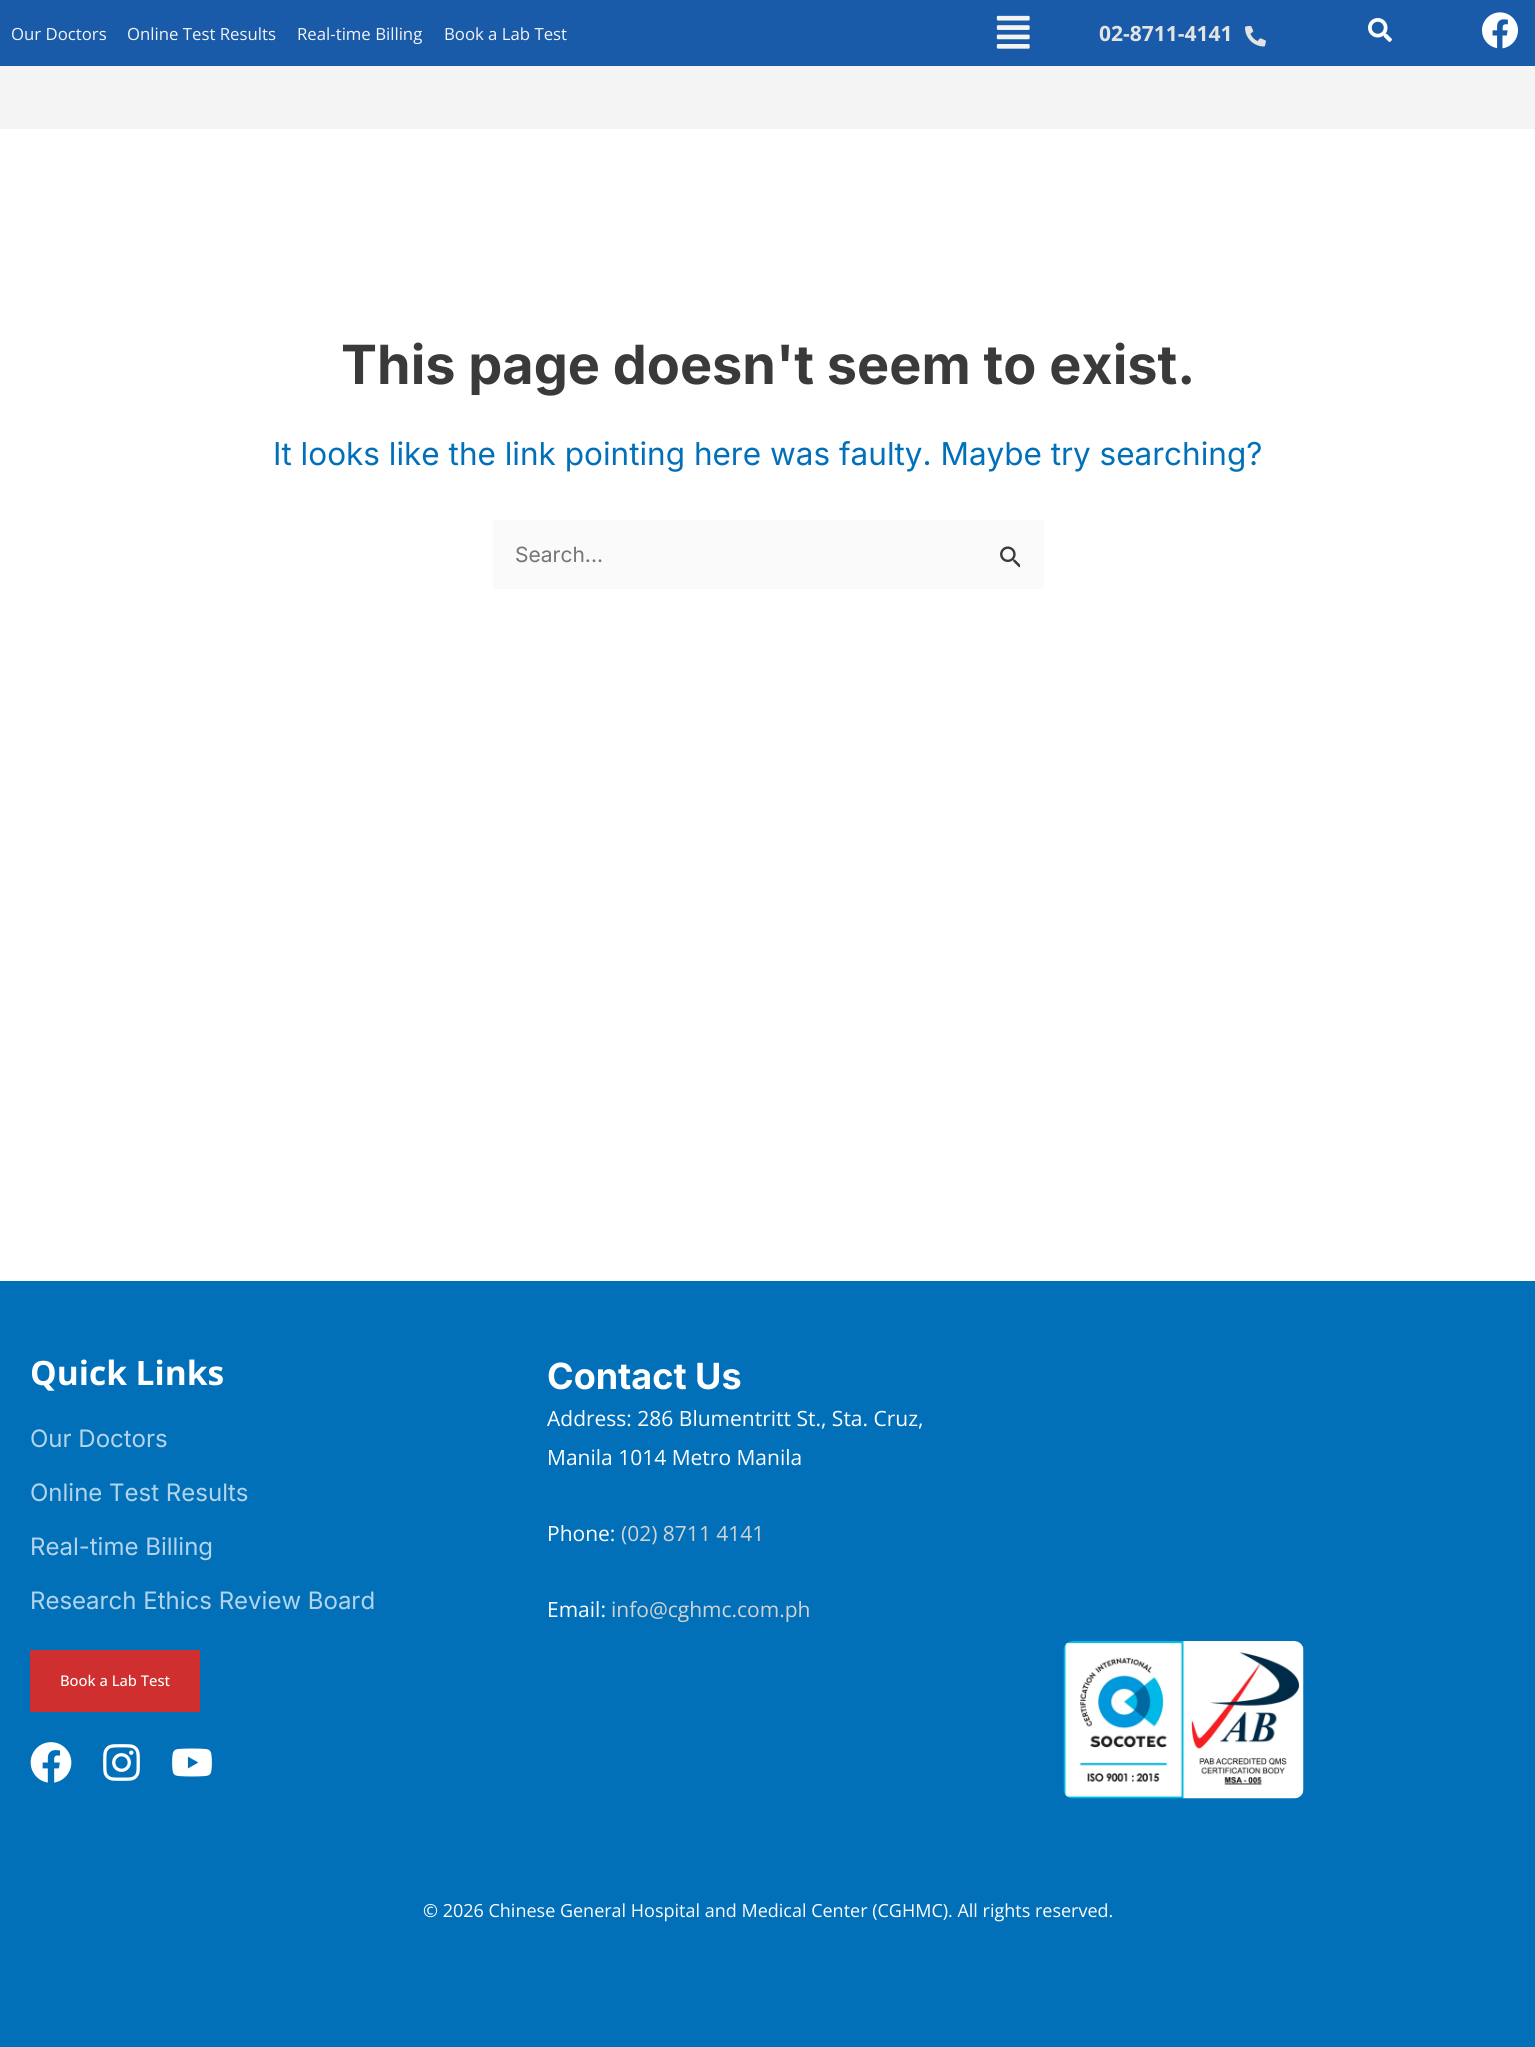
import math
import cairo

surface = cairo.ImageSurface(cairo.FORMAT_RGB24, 1535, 2047)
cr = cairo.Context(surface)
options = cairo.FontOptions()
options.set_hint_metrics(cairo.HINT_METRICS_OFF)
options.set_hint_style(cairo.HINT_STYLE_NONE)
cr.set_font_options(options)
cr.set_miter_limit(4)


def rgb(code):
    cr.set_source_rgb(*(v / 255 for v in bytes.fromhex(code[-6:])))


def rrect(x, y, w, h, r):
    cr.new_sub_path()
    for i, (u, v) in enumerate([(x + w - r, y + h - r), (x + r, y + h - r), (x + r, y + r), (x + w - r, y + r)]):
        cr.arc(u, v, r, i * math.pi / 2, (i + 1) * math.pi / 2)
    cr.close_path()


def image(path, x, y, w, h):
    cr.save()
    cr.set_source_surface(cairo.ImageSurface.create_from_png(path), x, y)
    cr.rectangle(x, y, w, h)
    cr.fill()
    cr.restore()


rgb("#ffffff")
cr.paint()
rgb("#195ba9")
cr.rectangle(0, 0, 1535, 66)
cr.fill()
image("img/1.png", 996, 15, 34, 34)
image("img/2.png", 1245, 26, 21, 21)
image("img/3.png", 1368, 18, 24, 24)
image("img/4.png", 1482, 12, 36, 37)
rgb("#f4f4f4")
cr.rectangle(0, 66, 1535, 63)
cr.fill()
rgb("#fafafa")
rrect(492, 519, 553, 71, 2)
cr.fill_preserve()
rgb("#ffffff")
cr.stroke()
image("img/5.png", 1000, 546, 20, 22)
rgb("#0170b9")
cr.rectangle(0, 1281, 1535, 578)
cr.fill()
rgb("#d02f2f")
cr.rectangle(30, 1650, 170, 62)
cr.fill()
image("img/6.png", 30, 1742, 42, 41)
image("img/7.png", 103, 1744, 37, 37)
image("img/8.png", 172, 1748, 40, 29)
image("img/9.png", 1063, 1641, 241, 158)
rgb("#0170b9")
cr.rectangle(0, 1859, 1535, 188)
cr.fill()
cr.select_font_face("Open Sans")
cr.set_font_size(16.75)
rgb("#f4f4f4")
for x, y, s in [
    (11, 40, "Our Doctors"),
    (127, 40, "Online Test Results"),
    (297, 40, "Real-time Billing"),
    (444, 40, "Book a Lab Test"),
]:
    cr.move_to(x, y)
    cr.show_text(s)
cr.select_font_face("Open Sans", cairo.FONT_SLANT_NORMAL, cairo.FONT_WEIGHT_BOLD)
cr.set_font_size(21)
rgb("#e3e3e3")
cr.move_to(1099, 41)
cr.show_text("02-8711-4141")
cr.select_font_face("Inter", cairo.FONT_SLANT_NORMAL, cairo.FONT_WEIGHT_BOLD)
cr.set_font_size(54)
rgb("#3a3a3a")
cr.move_to(341, 384)
cr.show_text("This page doesn't seem to exist.")
cr.select_font_face("Inter")
cr.set_font_size(31.5)
rgb("#0170b9")
cr.move_to(273, 465)
cr.show_text("It looks like the link pointing here was faulty. Maybe try searching?")
cr.set_font_size(21)
rgb("#757575")
cr.move_to(515, 562)
cr.show_text("Search...")
cr.select_font_face("Open Sans", cairo.FONT_SLANT_NORMAL, cairo.FONT_WEIGHT_BOLD)
cr.set_font_size(33.5)
rgb("#ffffff")
cr.move_to(30, 1385)
cr.show_text("Quick Links")
cr.select_font_face("Inter")
cr.set_font_size(24)
rgb("#b3d4ea")
for x, y, s in [
    (30, 1447, "Our Doctors"),
    (30, 1501, "Online Test Results"),
    (30, 1555, "Real-time Billing"),
    (30, 1609, "Research Ethics Review Board"),
]:
    cr.move_to(x, y)
    cr.show_text(s)
cr.select_font_face("Open Sans Medium")
cr.set_font_size(14.75)
rgb("#ffffff")
cr.move_to(60, 1686)
cr.show_text("Book a Lab Test")
cr.select_font_face("Inter", cairo.FONT_SLANT_NORMAL, cairo.FONT_WEIGHT_BOLD)
cr.set_font_size(36)
cr.move_to(547, 1389)
cr.show_text("Contact Us")
cr.select_font_face("Open Sans")
cr.set_font_size(21)
for x, y, s in [
    (547, 1426, "Address: 286 Blumentritt St., Sta. Cruz,"),
    (547, 1465, "Manila 1014 Metro Manila"),
    (547, 1541, "Phone:"),
]:
    cr.move_to(x, y)
    cr.show_text(s)
rgb("#d3d3d3")
cr.move_to(621, 1541)
cr.show_text("(02) 8711 4141")
rgb("#ffffff")
cr.move_to(547, 1617)
cr.show_text("Email:")
rgb("#d3d3d3")
cr.move_to(611, 1617)
cr.show_text("info@cghmc.com.ph")
cr.set_font_size(18)
rgb("#ffffff")
cr.move_to(423, 1917)
cr.show_text("© 2026 Chinese General Hospital and Medical Center (CGHMC). All rights reserved.")
surface.write_to_png("page.png")
